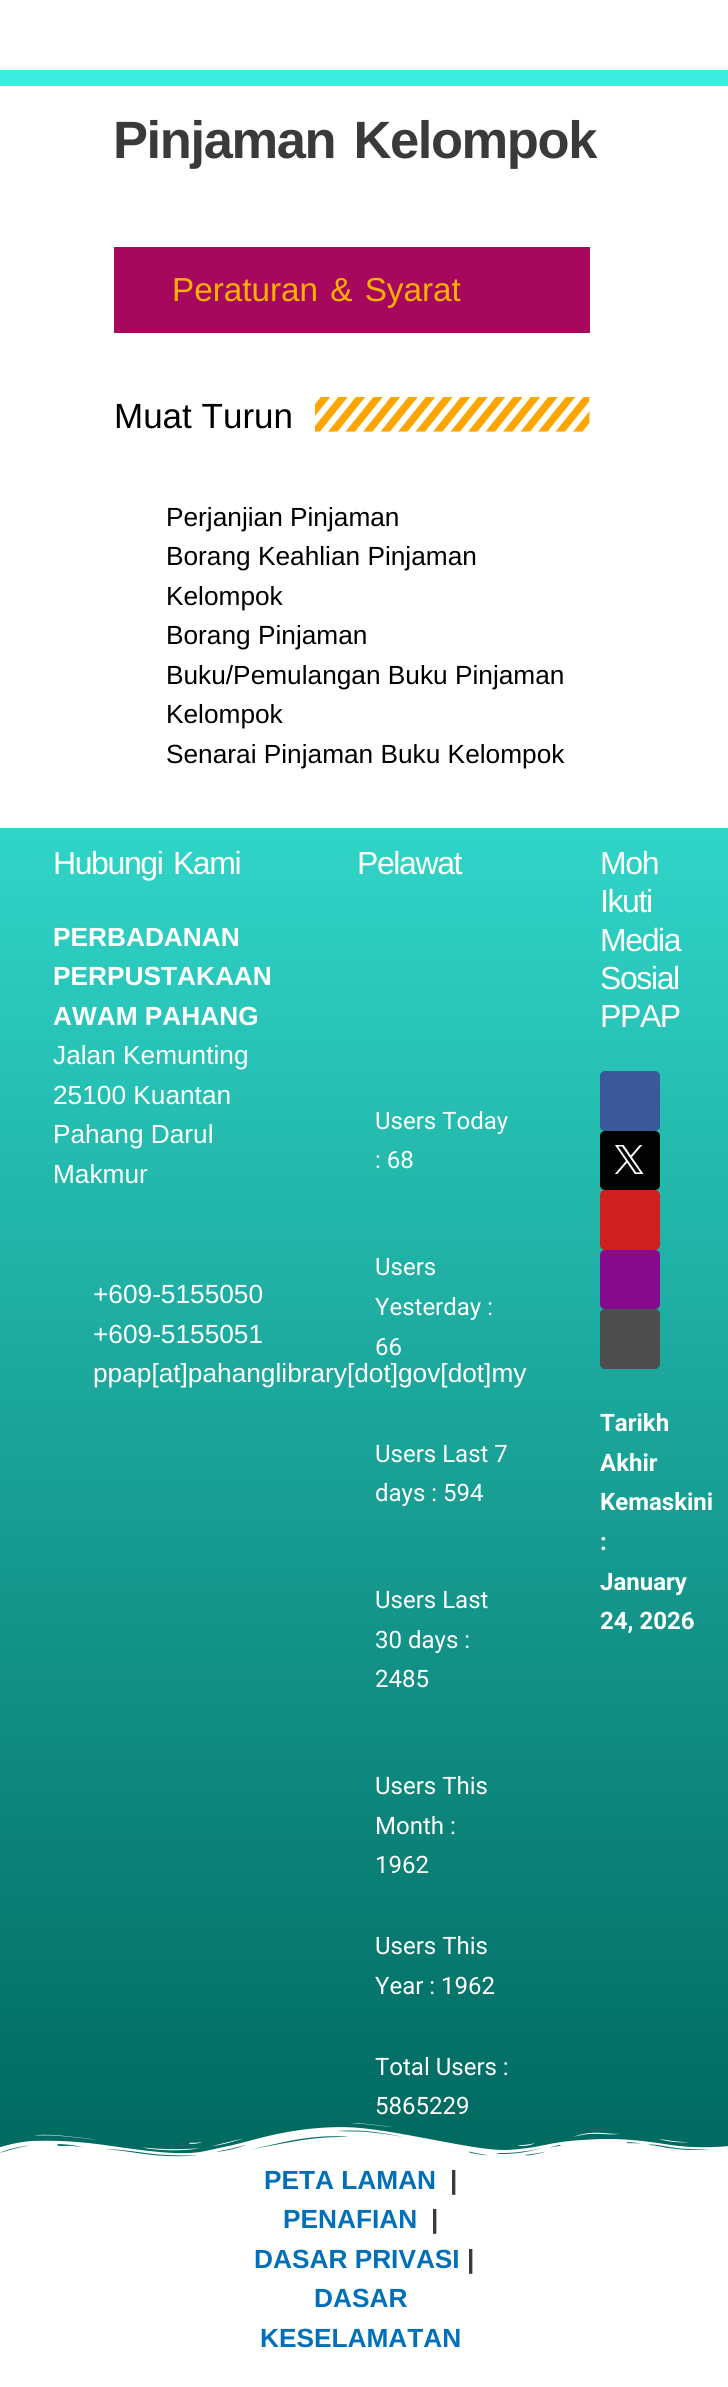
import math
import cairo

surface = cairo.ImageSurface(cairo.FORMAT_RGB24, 728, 2387)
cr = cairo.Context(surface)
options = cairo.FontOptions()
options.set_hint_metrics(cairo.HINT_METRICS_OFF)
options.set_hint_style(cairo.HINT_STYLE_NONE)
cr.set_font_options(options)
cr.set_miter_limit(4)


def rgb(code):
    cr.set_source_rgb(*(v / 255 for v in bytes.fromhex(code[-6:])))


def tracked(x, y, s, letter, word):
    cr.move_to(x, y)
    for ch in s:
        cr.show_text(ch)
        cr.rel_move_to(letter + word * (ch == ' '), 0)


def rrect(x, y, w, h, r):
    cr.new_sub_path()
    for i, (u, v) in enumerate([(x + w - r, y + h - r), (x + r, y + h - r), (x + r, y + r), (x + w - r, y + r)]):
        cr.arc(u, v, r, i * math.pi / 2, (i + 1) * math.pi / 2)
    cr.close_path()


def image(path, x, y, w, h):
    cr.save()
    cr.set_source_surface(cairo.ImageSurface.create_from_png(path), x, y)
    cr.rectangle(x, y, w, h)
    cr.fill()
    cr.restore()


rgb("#ffffff")
cr.paint()
rgb("#3deee0")
cr.rectangle(0, 70, 728, 16)
cr.fill()
rgb("#a6085d")
cr.rectangle(114, 247, 476, 86)
cr.fill()
image("img/1.png", 315, 397, 275, 35)
gradient = cairo.LinearGradient(364, 828, 364, 2161)
gradient.add_color_stop_rgba(0, 0.188, 0.835, 0.784, 1)
gradient.add_color_stop_rgba(1, 0, 0.408, 0.373, 1)
cr.set_source(gradient)
cr.rectangle(0, 828, 728, 1329)
cr.fill()
rgb("#3b5998")
rrect(600, 1071, 60, 60, 5)
cr.fill()
rgb("#020202")
rrect(600, 1131, 60, 59, 5)
cr.fill()
image("img/2.png", 614, 1145, 30, 29)
rgb("#cd201f")
rrect(600, 1190, 60, 60, 5)
cr.fill()
rgb("#850b8c")
rrect(600, 1250, 60, 59, 5)
cr.fill()
rgb("#4e4e4e")
rrect(600, 1309, 60, 60, 5)
cr.fill()
image("img/3.png", 0, 2123, 728, 38)
cr.select_font_face("Liberation Sans", cairo.FONT_SLANT_NORMAL, cairo.FONT_WEIGHT_BOLD)
cr.set_font_size(52.5)
rgb("#3a3a3a")
tracked(113, 158, "Pinjaman Kelompok", -1.4, 5)
cr.select_font_face("Liberation Sans")
cr.set_font_size(33.25)
rgb("#ffb102")
tracked(172, 301, "Peraturan & Syarat", 0, 3)
cr.set_font_size(35)
rgb("#000000")
cr.move_to(114, 428)
cr.show_text("Muat Turun")
cr.set_font_size(26.25)
for x, y, s in [
    (166, 526, "Perjanjian Pinjaman"),
    (166, 565, "Borang Keahlian Pinjaman"),
    (166, 605, "Kelompok"),
    (166, 644, "Borang Pinjaman"),
    (166, 684, "Buku/Pemulangan Buku Pinjaman"),
    (166, 723, "Kelompok"),
    (166, 763, "Senarai Pinjaman Buku Kelompok"),
]:
    cr.move_to(x, y)
    cr.show_text(s)
cr.set_font_size(32)
rgb("#ffffff")
tracked(53, 874, "Hubungi Kami", -1.4, 3)
cr.select_font_face("Liberation Sans", cairo.FONT_SLANT_NORMAL, cairo.FONT_WEIGHT_BOLD)
cr.set_font_size(26.25)
for x, y, s in [
    (53, 946, "PERBADANAN"),
    (53, 985, "PERPUSTAKAAN"),
    (53, 1025, "AWAM PAHANG"),
]:
    cr.move_to(x, y)
    cr.show_text(s)
cr.select_font_face("Liberation Sans")
for x, y, s in [
    (53, 1064, "Jalan Kemunting"),
    (53, 1104, "25100 Kuantan"),
    (53, 1143, "Pahang Darul"),
    (53, 1183, "Makmur"),
    (93, 1303, "+609-5155050"),
    (93, 1343, "+609-5155051"),
    (93, 1382, "ppap[at]pahanglibrary[dot]gov[dot]my"),
]:
    cr.move_to(x, y)
    cr.show_text(s)
cr.set_font_size(32)
tracked(357, 874, "Pelawat", -1.4, 0)
cr.select_font_face("Roboto")
cr.set_font_size(24)
for x, y, s in [
    (375, 1129, "Users Today"),
    (375, 1168, ": 68"),
    (375, 1275, "Users"),
    (375, 1315, "Yesterday :"),
    (375, 1355, "66"),
    (375, 1462, "Users Last 7"),
    (375, 1501, "days : 594"),
    (375, 1608, "Users Last"),
    (375, 1648, "30 days :"),
    (375, 1687, "2485"),
    (375, 1794, "Users This"),
    (375, 1834, "Month :"),
    (375, 1873, "1962"),
    (375, 1954, "Users This"),
    (375, 1994, "Year : 1962"),
    (375, 2075, "Total Users :"),
    (375, 2114, "5865229"),
]:
    cr.move_to(x, y)
    cr.show_text(s)
cr.select_font_face("Liberation Sans")
cr.set_font_size(32)
for x, y, s in [
    (600, 874, "Moh"),
    (600, 912, "Ikuti"),
    (600, 951, "Media"),
    (600, 989, "Sosial"),
    (600, 1027, "PPAP"),
]:
    tracked(x, y, s, -1.4, 0)
cr.select_font_face("Roboto", cairo.FONT_SLANT_NORMAL, cairo.FONT_WEIGHT_BOLD)
cr.set_font_size(24)
for x, y, s in [
    (600, 1431, "Tarikh"),
    (600, 1471, "Akhir"),
    (600, 1510, "Kemaskini"),
    (600, 1550, ":"),
    (600, 1590, "January"),
    (600, 1629, "24, 2026"),
]:
    cr.move_to(x, y)
    cr.show_text(s)
cr.select_font_face("Liberation Sans", cairo.FONT_SLANT_NORMAL, cairo.FONT_WEIGHT_BOLD)
cr.set_font_size(26.25)
rgb("#0170b9")
cr.move_to(264, 2189)
cr.show_text("PETA LAMAN")
rgb("#3a3a3a")
cr.move_to(450, 2189)
cr.show_text("|")
rgb("#0170b9")
cr.move_to(283, 2228)
cr.show_text("PENAFIAN")
rgb("#3a3a3a")
cr.move_to(431, 2228)
cr.show_text("|")
rgb("#0170b9")
cr.move_to(254, 2268)
cr.show_text("DASAR PRIVASI")
rgb("#3a3a3a")
cr.move_to(467, 2268)
cr.show_text("|")
rgb("#0170b9")
cr.move_to(314, 2307)
cr.show_text("DASAR")
cr.move_to(260, 2347)
cr.show_text("KESELAMATAN")
surface.write_to_png("page.png")
